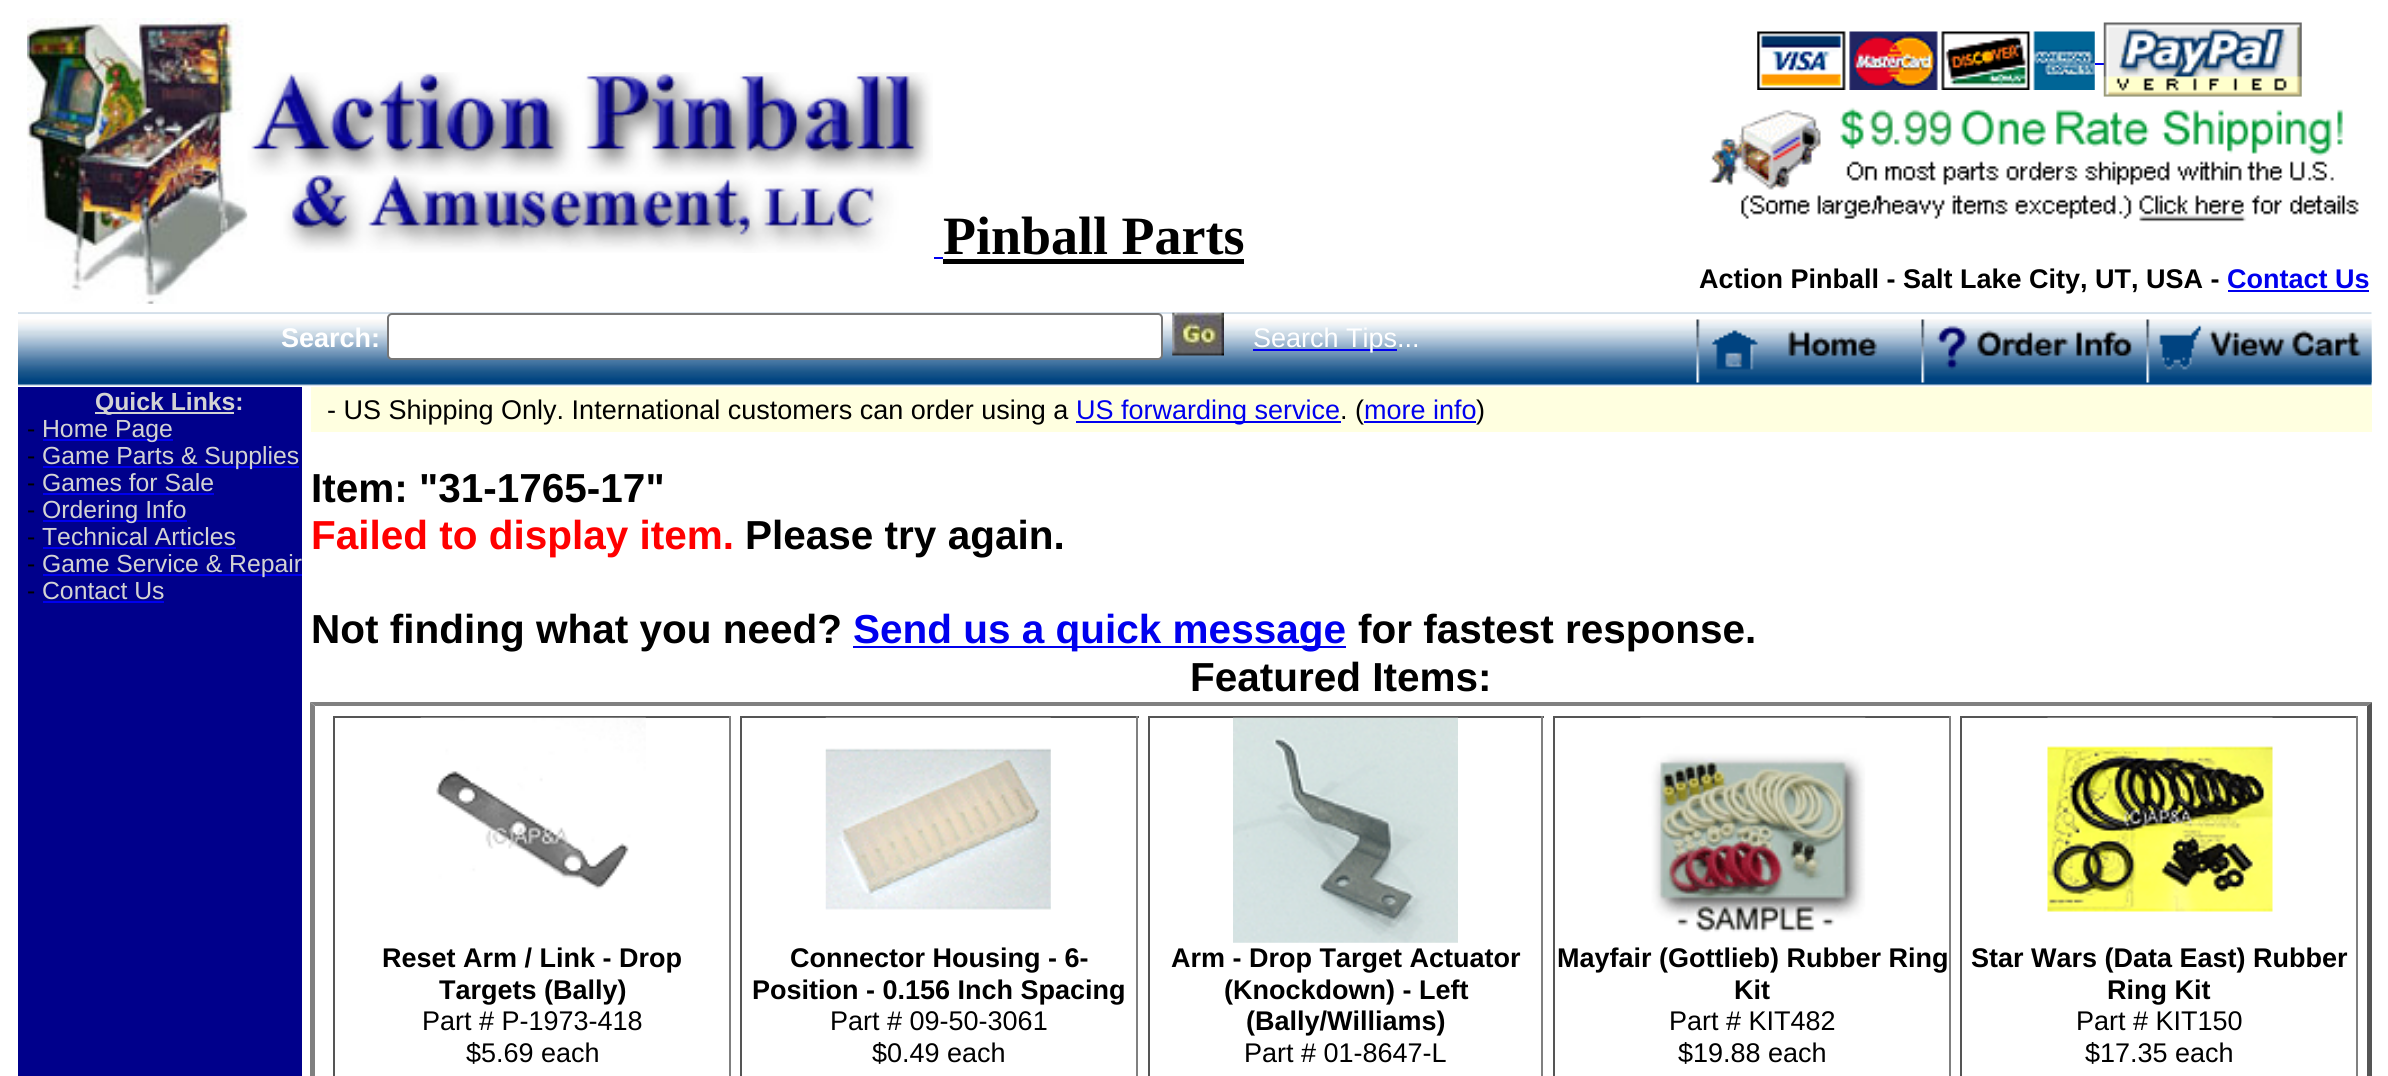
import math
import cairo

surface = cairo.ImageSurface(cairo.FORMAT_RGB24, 2388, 1076)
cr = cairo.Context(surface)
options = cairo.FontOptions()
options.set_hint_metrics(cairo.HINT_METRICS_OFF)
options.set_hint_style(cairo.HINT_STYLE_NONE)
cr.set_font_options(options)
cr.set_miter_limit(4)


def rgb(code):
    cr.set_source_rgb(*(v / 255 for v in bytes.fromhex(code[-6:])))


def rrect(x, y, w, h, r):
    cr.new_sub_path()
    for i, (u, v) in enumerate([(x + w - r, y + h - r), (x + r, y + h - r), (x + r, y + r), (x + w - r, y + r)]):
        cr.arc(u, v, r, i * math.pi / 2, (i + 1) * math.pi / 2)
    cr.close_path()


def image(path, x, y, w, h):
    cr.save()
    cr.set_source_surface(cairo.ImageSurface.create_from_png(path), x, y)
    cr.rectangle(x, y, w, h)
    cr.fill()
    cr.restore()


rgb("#ffffff")
cr.paint()
image("img/1.png", 27, 18, 221, 286)
image("img/2.png", 247, 72, 686, 181)
rgb("#000000")
cr.rectangle(943, 259, 301, 5)
cr.fill()
rgb("#0000ee")
cr.rectangle(934, 257, 9, 2)
cr.fill()
image("img/3.png", 1757, 31, 338, 59)
cr.rectangle(2095, 63, 9, 2)
cr.fill()
image("img/4.png", 2103, 22, 199, 75)
image("img/5.png", 1709, 96, 650, 126)
cr.rectangle(2228, 290, 141, 2)
cr.fill()
image("img/6.png", 18, 312, 2354, 74)
rgb("#ffffff")
rrect(388, 314, 774, 45, 4)
cr.fill_preserve()
rgb("#767676")
cr.stroke()
image("img/7.png", 1172, 312, 52, 44)
rgb("#0000ee")
cr.rectangle(1253, 349, 144, 2)
cr.fill()
image("img/8.png", 1696, 319, 226, 64)
image("img/9.png", 1921, 319, 226, 64)
image("img/10.png", 2146, 319, 226, 64)
for x, y, w, h, color in [
    (18, 387, 284, 689, "#00008b"),
    (95, 412, 139, 2, "#d3d3d3"),
    (43, 439, 130, 2, "#0000ee"),
    (43, 466, 256, 2, "#0000ee"),
    (43, 493, 171, 2, "#0000ee"),
    (43, 520, 144, 2, "#0000ee"),
    (43, 547, 193, 2, "#0000ee"),
    (43, 574, 259, 2, "#0000ee"),
    (43, 601, 121, 2, "#0000ee"),
    (311, 387, 2061, 45, "#ffffe0"),
    (1076, 421, 265, 2, "#0000ee"),
    (1364, 421, 112, 2, "#0000ee"),
    (853, 646, 493, 2, "#0000ee"),
]:
    rgb(color)
    cr.rectangle(x, y, w, h)
    cr.fill()
rgb("#808080")
cr.new_path()
cr.move_to(310, 702)
cr.line_to(2372, 702)
cr.line_to(2367, 706)
cr.line_to(315, 706)
cr.close_path()
cr.fill()
rgb("#555555")
cr.new_path()
cr.move_to(2372, 702)
cr.line_to(2372, 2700)
cr.line_to(2367, 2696)
cr.line_to(2367, 706)
cr.close_path()
cr.fill()
rgb("#808080")
cr.new_path()
cr.move_to(310, 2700)
cr.line_to(310, 702)
cr.line_to(315, 706)
cr.line_to(315, 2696)
cr.close_path()
cr.fill()
for x, y, w, h, color in [
    (333, 716, 398, 2, "#555555"),
    (729, 716, 2, 360, "#808080"),
    (333, 716, 2, 360, "#555555"),
]:
    rgb(color)
    cr.rectangle(x, y, w, h)
    cr.fill()
image("img/11.png", 420, 717, 226, 173)
for x, y, w, h, color in [
    (740, 716, 399, 2, "#555555"),
    (1136, 716, 2, 360, "#808080"),
    (740, 716, 2, 360, "#555555"),
]:
    rgb(color)
    cr.rectangle(x, y, w, h)
    cr.fill()
image("img/12.png", 825, 717, 226, 193)
for x, y, w, h, color in [
    (1148, 716, 396, 2, "#555555"),
    (1541, 716, 2, 360, "#808080"),
    (1148, 716, 2, 360, "#555555"),
]:
    rgb(color)
    cr.rectangle(x, y, w, h)
    cr.fill()
image("img/13.png", 1233, 717, 225, 226)
for x, y, w, h, color in [
    (1553, 716, 398, 2, "#555555"),
    (1949, 716, 2, 360, "#808080"),
    (1553, 716, 2, 360, "#555555"),
]:
    rgb(color)
    cr.rectangle(x, y, w, h)
    cr.fill()
image("img/14.png", 1640, 717, 226, 216)
for x, y, w, h, color in [
    (1960, 716, 398, 2, "#555555"),
    (2356, 716, 2, 360, "#808080"),
    (1960, 716, 2, 360, "#555555"),
]:
    rgb(color)
    cr.rectangle(x, y, w, h)
    cr.fill()
image("img/15.png", 2047, 717, 226, 195)
cr.select_font_face("Liberation Serif", cairo.FONT_SLANT_NORMAL, cairo.FONT_WEIGHT_BOLD)
cr.set_font_size(54)
rgb("#000000")
cr.move_to(943, 254)
cr.show_text("Pinball Parts")
cr.select_font_face("Liberation Sans", cairo.FONT_SLANT_NORMAL, cairo.FONT_WEIGHT_BOLD)
cr.set_font_size(27)
cr.move_to(1699, 288)
cr.show_text("Action Pinball - Salt Lake City, UT, USA -")
rgb("#0000ee")
cr.move_to(2227, 288)
cr.show_text("Contact Us")
rgb("#ffffff")
cr.move_to(281, 347)
cr.show_text("Search:")
cr.select_font_face("Liberation Sans")
cr.move_to(1253, 347)
cr.show_text("Search Tips...")
cr.select_font_face("Liberation Sans", cairo.FONT_SLANT_NORMAL, cairo.FONT_WEIGHT_BOLD)
cr.set_font_size(24.75)
rgb("#d3d3d3")
cr.move_to(95, 410)
cr.show_text("Quick Links:")
cr.select_font_face("Liberation Sans")
rgb("#000000")
cr.move_to(27, 437)
cr.show_text("-")
rgb("#d3d3d3")
cr.move_to(42, 437)
cr.show_text("Home Page")
rgb("#000000")
cr.move_to(27, 464)
cr.show_text("-")
rgb("#d3d3d3")
cr.move_to(42, 464)
cr.show_text("Game Parts & Supplies")
rgb("#000000")
cr.move_to(27, 491)
cr.show_text("-")
rgb("#d3d3d3")
cr.move_to(42, 491)
cr.show_text("Games for Sale")
rgb("#000000")
cr.move_to(27, 518)
cr.show_text("-")
rgb("#d3d3d3")
cr.move_to(42, 518)
cr.show_text("Ordering Info")
rgb("#000000")
cr.move_to(27, 545)
cr.show_text("-")
rgb("#d3d3d3")
cr.move_to(42, 545)
cr.show_text("Technical Articles")
rgb("#000000")
cr.move_to(27, 572)
cr.show_text("-")
rgb("#d3d3d3")
cr.move_to(42, 572)
cr.show_text("Game Service & Repair")
rgb("#000000")
cr.move_to(27, 599)
cr.show_text("-")
rgb("#d3d3d3")
cr.move_to(42, 599)
cr.show_text("Contact Us")
cr.set_font_size(27)
rgb("#000000")
cr.move_to(327, 419)
cr.show_text("- US Shipping Only. International customers can order using a")
rgb("#0000ee")
cr.move_to(1076, 419)
cr.show_text("US forwarding service")
rgb("#000000")
cr.move_to(1340, 419)
cr.show_text(". (")
rgb("#0000ee")
cr.move_to(1364, 419)
cr.show_text("more info")
rgb("#000000")
cr.move_to(1476, 419)
cr.show_text(")")
cr.select_font_face("Liberation Sans", cairo.FONT_SLANT_NORMAL, cairo.FONT_WEIGHT_BOLD)
cr.set_font_size(40.5)
cr.move_to(311, 502)
cr.show_text("Item: \"31-1765-17\"")
rgb("#ff0000")
cr.move_to(311, 549)
cr.show_text("Failed to display item.")
rgb("#000000")
cr.move_to(745, 549)
cr.show_text("Please try again.")
cr.move_to(311, 643)
cr.show_text("Not finding what you need?")
rgb("#0000ee")
cr.move_to(853, 643)
cr.show_text("Send us a quick message")
rgb("#000000")
cr.move_to(1358, 643)
cr.show_text("for fastest response.")
cr.move_to(1190, 691)
cr.show_text("Featured Items:")
cr.set_font_size(27)
cr.move_to(382, 967)
cr.show_text("Reset Arm / Link - Drop")
cr.move_to(439, 999)
cr.show_text("Targets (Bally)")
cr.select_font_face("Liberation Sans")
cr.move_to(422, 1030)
cr.show_text("Part # P-1973-418")
cr.move_to(466, 1062)
cr.show_text("$5.69 each")
cr.select_font_face("Liberation Sans", cairo.FONT_SLANT_NORMAL, cairo.FONT_WEIGHT_BOLD)
cr.move_to(790, 967)
cr.show_text("Connector Housing - 6-")
cr.move_to(752, 999)
cr.show_text("Position - 0.156 Inch Spacing")
cr.select_font_face("Liberation Sans")
cr.move_to(830, 1030)
cr.show_text("Part # 09-50-3061")
cr.move_to(872, 1062)
cr.show_text("$0.49 each")
cr.select_font_face("Liberation Sans", cairo.FONT_SLANT_NORMAL, cairo.FONT_WEIGHT_BOLD)
for x, y, s in [
    (1171, 967, "Arm - Drop Target Actuator"),
    (1224, 999, "(Knockdown) - Left"),
    (1246, 1030, "(Bally/Williams)"),
]:
    cr.move_to(x, y)
    cr.show_text(s)
cr.select_font_face("Liberation Sans")
cr.move_to(1244, 1062)
cr.show_text("Part # 01-8647-L")
cr.select_font_face("Liberation Sans", cairo.FONT_SLANT_NORMAL, cairo.FONT_WEIGHT_BOLD)
cr.move_to(1557, 967)
cr.show_text("Mayfair (Gottlieb) Rubber Ring")
cr.move_to(1734, 999)
cr.show_text("Kit")
cr.select_font_face("Liberation Sans")
cr.move_to(1669, 1030)
cr.show_text("Part # KIT482")
cr.move_to(1678, 1062)
cr.show_text("$19.88 each")
cr.select_font_face("Liberation Sans", cairo.FONT_SLANT_NORMAL, cairo.FONT_WEIGHT_BOLD)
cr.move_to(1971, 967)
cr.show_text("Star Wars (Data East) Rubber")
cr.move_to(2107, 999)
cr.show_text("Ring Kit")
cr.select_font_face("Liberation Sans")
cr.move_to(2076, 1030)
cr.show_text("Part # KIT150")
cr.move_to(2085, 1062)
cr.show_text("$17.35 each")
surface.write_to_png("page.png")
